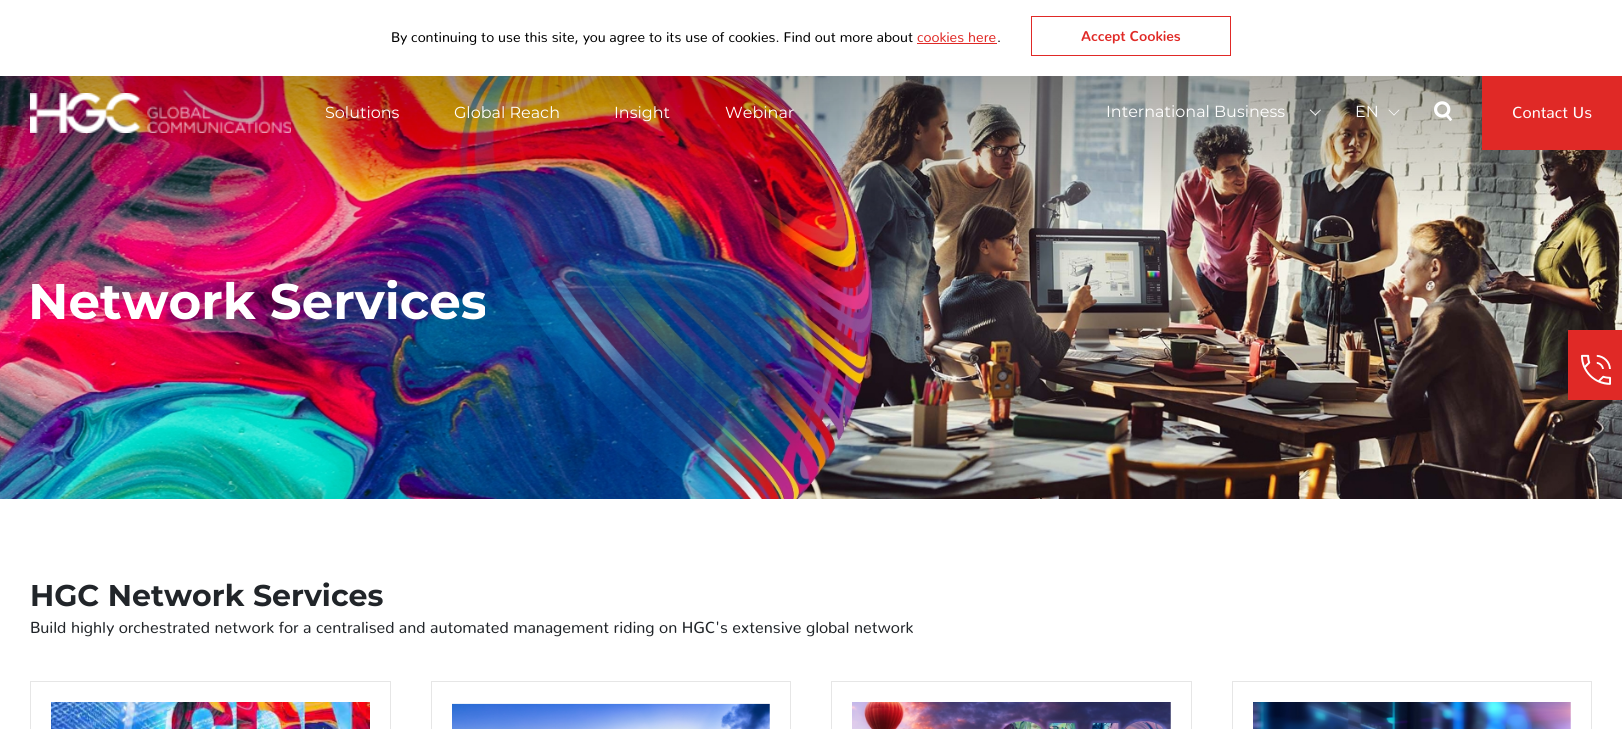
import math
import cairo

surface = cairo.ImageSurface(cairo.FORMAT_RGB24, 1622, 729)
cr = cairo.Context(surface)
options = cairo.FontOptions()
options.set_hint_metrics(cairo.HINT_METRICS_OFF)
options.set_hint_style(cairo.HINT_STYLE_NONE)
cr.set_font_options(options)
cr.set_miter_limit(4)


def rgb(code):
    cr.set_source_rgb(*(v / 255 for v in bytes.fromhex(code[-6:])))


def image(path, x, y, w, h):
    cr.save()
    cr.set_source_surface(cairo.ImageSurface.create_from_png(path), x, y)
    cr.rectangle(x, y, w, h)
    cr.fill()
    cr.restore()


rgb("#ffffff")
cr.paint()
rgb("#e02926")
cr.rectangle(917, 43, 80, 1)
cr.fill()
cr.rectangle(1031.5, 16.5, 199, 39)
cr.set_line_width(1)
cr.stroke()
image("img/3.png", 0, 76, 1622, 423)
image("img/1.png", 30, 93, 261, 40)
rgb("#ffffff")
cr.new_path()
cr.move_to(1314.5, 115)
cr.line_to(1320.5, 109.5)
cr.line_to(1321, 110)
cr.line_to(1315.5, 115.5)
cr.close_path()
cr.fill()
cr.new_path()
cr.move_to(1309.5, 110)
cr.line_to(1310.5, 109.5)
cr.line_to(1316, 115)
cr.line_to(1315.5, 115.5)
cr.close_path()
cr.fill()
cr.new_path()
cr.move_to(1393.5, 115)
cr.line_to(1399, 109.5)
cr.line_to(1399.5, 110)
cr.line_to(1394, 115.5)
cr.close_path()
cr.fill()
cr.new_path()
cr.move_to(1388.5, 110)
cr.line_to(1389, 109.5)
cr.line_to(1394.5, 115)
cr.line_to(1394, 115.5)
cr.close_path()
cr.fill()
image("img/2.png", 1434, 101, 19, 20)
rgb("#e02926")
cr.rectangle(1482, 76, 140, 74)
cr.fill()
cr.rectangle(30.5, 681.5, 360, 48)
rgb("#e6e6e6")
cr.stroke()
image("img/4.png", 51, 702, 319, 27)
cr.rectangle(431.5, 681.5, 359, 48)
cr.stroke()
image("img/5.png", 452, 703, 318, 26)
cr.rectangle(831.5, 681.5, 360, 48)
cr.stroke()
image("img/6.png", 852, 702, 319, 27)
cr.rectangle(1232.5, 681.5, 359, 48)
cr.stroke()
image("img/7.png", 1253, 702, 318, 27)
rgb("#e02926")
cr.rectangle(1568, 330, 54, 70)
cr.fill()
image("img/8.png", 1581, 354, 30, 31)
cr.select_font_face("Nunito")
cr.set_font_size(14)
rgb("#000000")
cr.move_to(391, 42)
cr.show_text("By continuing to use this site, you agree to its use of cookies. Find out more about")
rgb("#e02926")
cr.move_to(917, 42)
cr.show_text("cookies here")
rgb("#000000")
cr.move_to(997, 42)
cr.show_text(".")
cr.select_font_face("Nunito", cairo.FONT_SLANT_NORMAL, cairo.FONT_WEIGHT_BOLD)
rgb("#e02926")
cr.move_to(1081, 41)
cr.show_text("Accept Cookies")
cr.select_font_face("Montserrat")
cr.set_font_size(16)
rgb("#ffffff")
for x, y, s in [
    (325, 118, "Solutions"),
    (454, 118, "Global Reach"),
    (614, 118, "Insight"),
    (725, 118, "Webinar"),
    (1106, 117, "International Business"),
    (1355, 117, "EN"),
]:
    cr.move_to(x, y)
    cr.show_text(s)
cr.select_font_face("Nunito")
cr.move_to(1512, 118)
cr.show_text("Contact Us")
cr.save()
cr.rectangle(30, 280, 455, 49)
cr.clip()
cr.select_font_face("Montserrat", cairo.FONT_SLANT_NORMAL, cairo.FONT_WEIGHT_BOLD)
cr.set_font_size(50)
cr.move_to(28, 319)
cr.show_text("Network Services")
cr.restore()
cr.select_font_face("Montserrat", cairo.FONT_SLANT_NORMAL, cairo.FONT_WEIGHT_BOLD)
cr.set_font_size(30)
rgb("#212529")
cr.move_to(30, 606)
cr.show_text("HGC Network Services")
cr.select_font_face("Nunito")
cr.set_font_size(16)
cr.move_to(30, 633)
cr.show_text("Build highly orchestrated network for a centralised and automated management riding on HGC's extensive global network")
surface.write_to_png("page.png")
